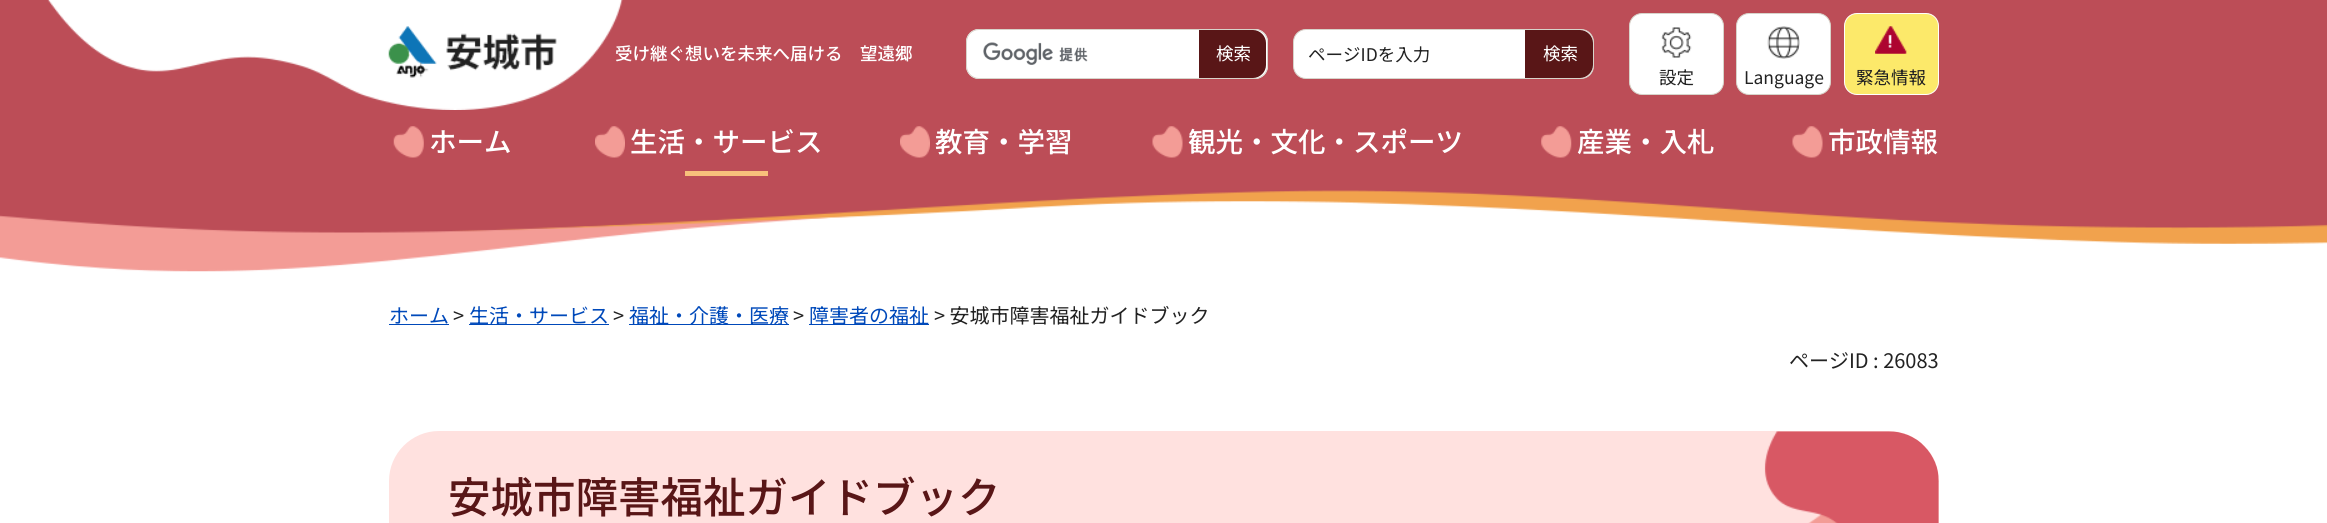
import math
import cairo

surface = cairo.ImageSurface(cairo.FORMAT_RGB24, 2327, 523)
cr = cairo.Context(surface)
options = cairo.FontOptions()
options.set_hint_metrics(cairo.HINT_METRICS_OFF)
options.set_hint_style(cairo.HINT_STYLE_NONE)
cr.set_font_options(options)
cr.set_miter_limit(4)


def rgb(code):
    cr.set_source_rgb(*(v / 255 for v in bytes.fromhex(code[-6:])))


def rrect(x, y, w, h, r):
    cr.new_sub_path()
    for i, (u, v) in enumerate([(x + w - r, y + h - r), (x + r, y + h - r), (x + r, y + r), (x + w - r, y + r)]):
        cr.arc(u, v, r, i * math.pi / 2, (i + 1) * math.pi / 2)
    cr.close_path()


def image(path, x, y, w, h):
    cr.save()
    cr.set_source_surface(cairo.ImageSurface.create_from_png(path), x, y)
    cr.rectangle(x, y, w, h)
    cr.fill()
    cr.restore()


rgb("#ffffff")
cr.paint()
rgb("#bc4d57")
cr.rectangle(0, 0, 2327, 190)
cr.fill()
image("img/1.png", 47, 0, 576, 110)
rgb("#ffffff")
cr.rectangle(559, 82, 1, 1)
cr.fill()
image("img/2.png", 388, 26, 169, 52)
rrect(966, 29, 302, 50, 13)
cr.fill()
image("img/3.png", 983, 42, 105, 23)
rrect(966.5, 29.5, 301, 49, 12.5)
rgb("#d7d4cb")
cr.set_line_width(1)
cr.stroke()
rgb("#591617")
cr.new_path()
cr.move_to(1199, 30)
cr.line_to(1253, 30)
cr.curve_to(1260, 30, 1266, 36, 1266, 43)
cr.line_to(1266, 65)
cr.curve_to(1266, 72, 1260, 78, 1253, 78)
cr.line_to(1199, 78)
cr.close_path()
cr.fill()
rgb("#ffffff")
rrect(1293.5, 29.5, 300, 49, 12.5)
cr.fill_preserve()
rgb("#d7d4cb")
cr.stroke()
rgb("#591617")
cr.new_path()
cr.move_to(1525, 30)
cr.line_to(1580, 30)
cr.curve_to(1587, 30, 1593, 36, 1593, 43)
cr.line_to(1593, 65)
cr.curve_to(1593, 72, 1587, 78, 1580, 78)
cr.line_to(1525, 78)
cr.close_path()
cr.fill()
rgb("#ffffff")
rrect(1629.5, 13.5, 94, 81, 12.5)
cr.fill_preserve()
rgb("#d7d4cb")
cr.stroke()
image("img/4.png", 1661, 27, 31, 31)
rgb("#ffffff")
rrect(1736.5, 13.5, 94, 81, 12.5)
cr.fill_preserve()
rgb("#d7d4cb")
cr.stroke()
image("img/5.png", 1767, 26, 33, 33)
rgb("#fce96a")
rrect(1844.5, 13.5, 94, 81, 12.5)
cr.fill_preserve()
rgb("#ffffff")
cr.stroke()
image("img/6.png", 1875, 26, 32, 28)
image("img/7.png", 393, 126, 31, 32)
image("img/8.png", 595, 126, 30, 32)
rgb("#f8c07b")
cr.rectangle(685, 171, 83, 5)
cr.fill()
image("img/8.png", 900, 126, 30, 32)
image("img/9.png", 1152, 126, 31, 32)
image("img/10.png", 1541, 126, 31, 32)
image("img/11.png", 1792, 126, 31, 32)
image("img/12.png", 0, 190, 2327, 82)
for x, y, w, h, color in [
    (389, 324, 60, 1, "#0049ba"),
    (469, 324, 140, 1, "#0049ba"),
    (629, 324, 160, 1, "#0049ba"),
    (809, 324, 120, 1, "#0049ba"),
]:
    rgb(color)
    cr.rectangle(x, y, w, h)
    cr.fill()
rgb("#ffe1df")
cr.new_path()
cr.move_to(439, 431)
cr.line_to(1889, 431)
cr.curve_to(1916.5, 431, 1939, 453.5, 1939, 481)
cr.line_to(1939, 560)
cr.line_to(389, 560)
cr.line_to(389, 481)
cr.curve_to(389, 453.5, 411.5, 431, 439, 431)
cr.close_path()
cr.fill()
image("img/13.png", 1764, 431, 175, 92)
cr.select_font_face("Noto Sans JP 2 Thin")
cr.set_font_size(17.5)
rgb("#ffffff")
cr.move_to(615, 60)
cr.show_text("受け継ぐ想いを未来へ届ける　望遠郷")
cr.select_font_face("Noto Sans JP Thin")
cr.move_to(1216, 60)
cr.show_text("検索")
rgb("#222222")
cr.move_to(1308, 61)
cr.show_text("ページIDを入力")
rgb("#ffffff")
cr.move_to(1543, 60)
cr.show_text("検索")
rgb("#222222")
for x, y, s in [
    (1659, 84, "設定"),
    (1744, 84, "Language"),
    (1856, 84, "緊急情報"),
]:
    cr.move_to(x, y)
    cr.show_text(s)
cr.select_font_face("Noto Sans JP 2 Thin")
cr.set_font_size(27.5)
rgb("#ffffff")
for x, y, s in [
    (429, 152, "ホーム"),
    (630, 152, "生活・サービス"),
    (935, 152, "教育・学習"),
    (1188, 152, "観光・文化・スポーツ"),
    (1577, 152, "産業・入札"),
    (1828, 152, "市政情報"),
]:
    cr.move_to(x, y)
    cr.show_text(s)
cr.select_font_face("Noto Sans JP Thin")
cr.set_font_size(20)
rgb("#0049ba")
cr.move_to(389, 323)
cr.show_text("ホーム")
rgb("#222222")
cr.move_to(453, 323)
cr.show_text(">")
rgb("#0049ba")
cr.move_to(469, 323)
cr.show_text("生活・サービス")
rgb("#222222")
cr.move_to(613, 323)
cr.show_text(">")
rgb("#0049ba")
cr.move_to(629, 323)
cr.show_text("福祉・介護・医療")
rgb("#222222")
cr.move_to(793, 323)
cr.show_text(">")
rgb("#0049ba")
cr.move_to(809, 323)
cr.show_text("障害者の福祉")
rgb("#222222")
cr.move_to(934, 323)
cr.show_text("> 安城市障害福祉ガイドブック")
cr.move_to(1789, 368)
cr.show_text("ページID : 26083")
cr.select_font_face("Noto Sans JP 2 Thin")
cr.set_font_size(42.5)
rgb("#591617")
cr.move_to(448, 513)
cr.show_text("安城市障害福祉ガイドブック")
surface.write_to_png("page.png")
